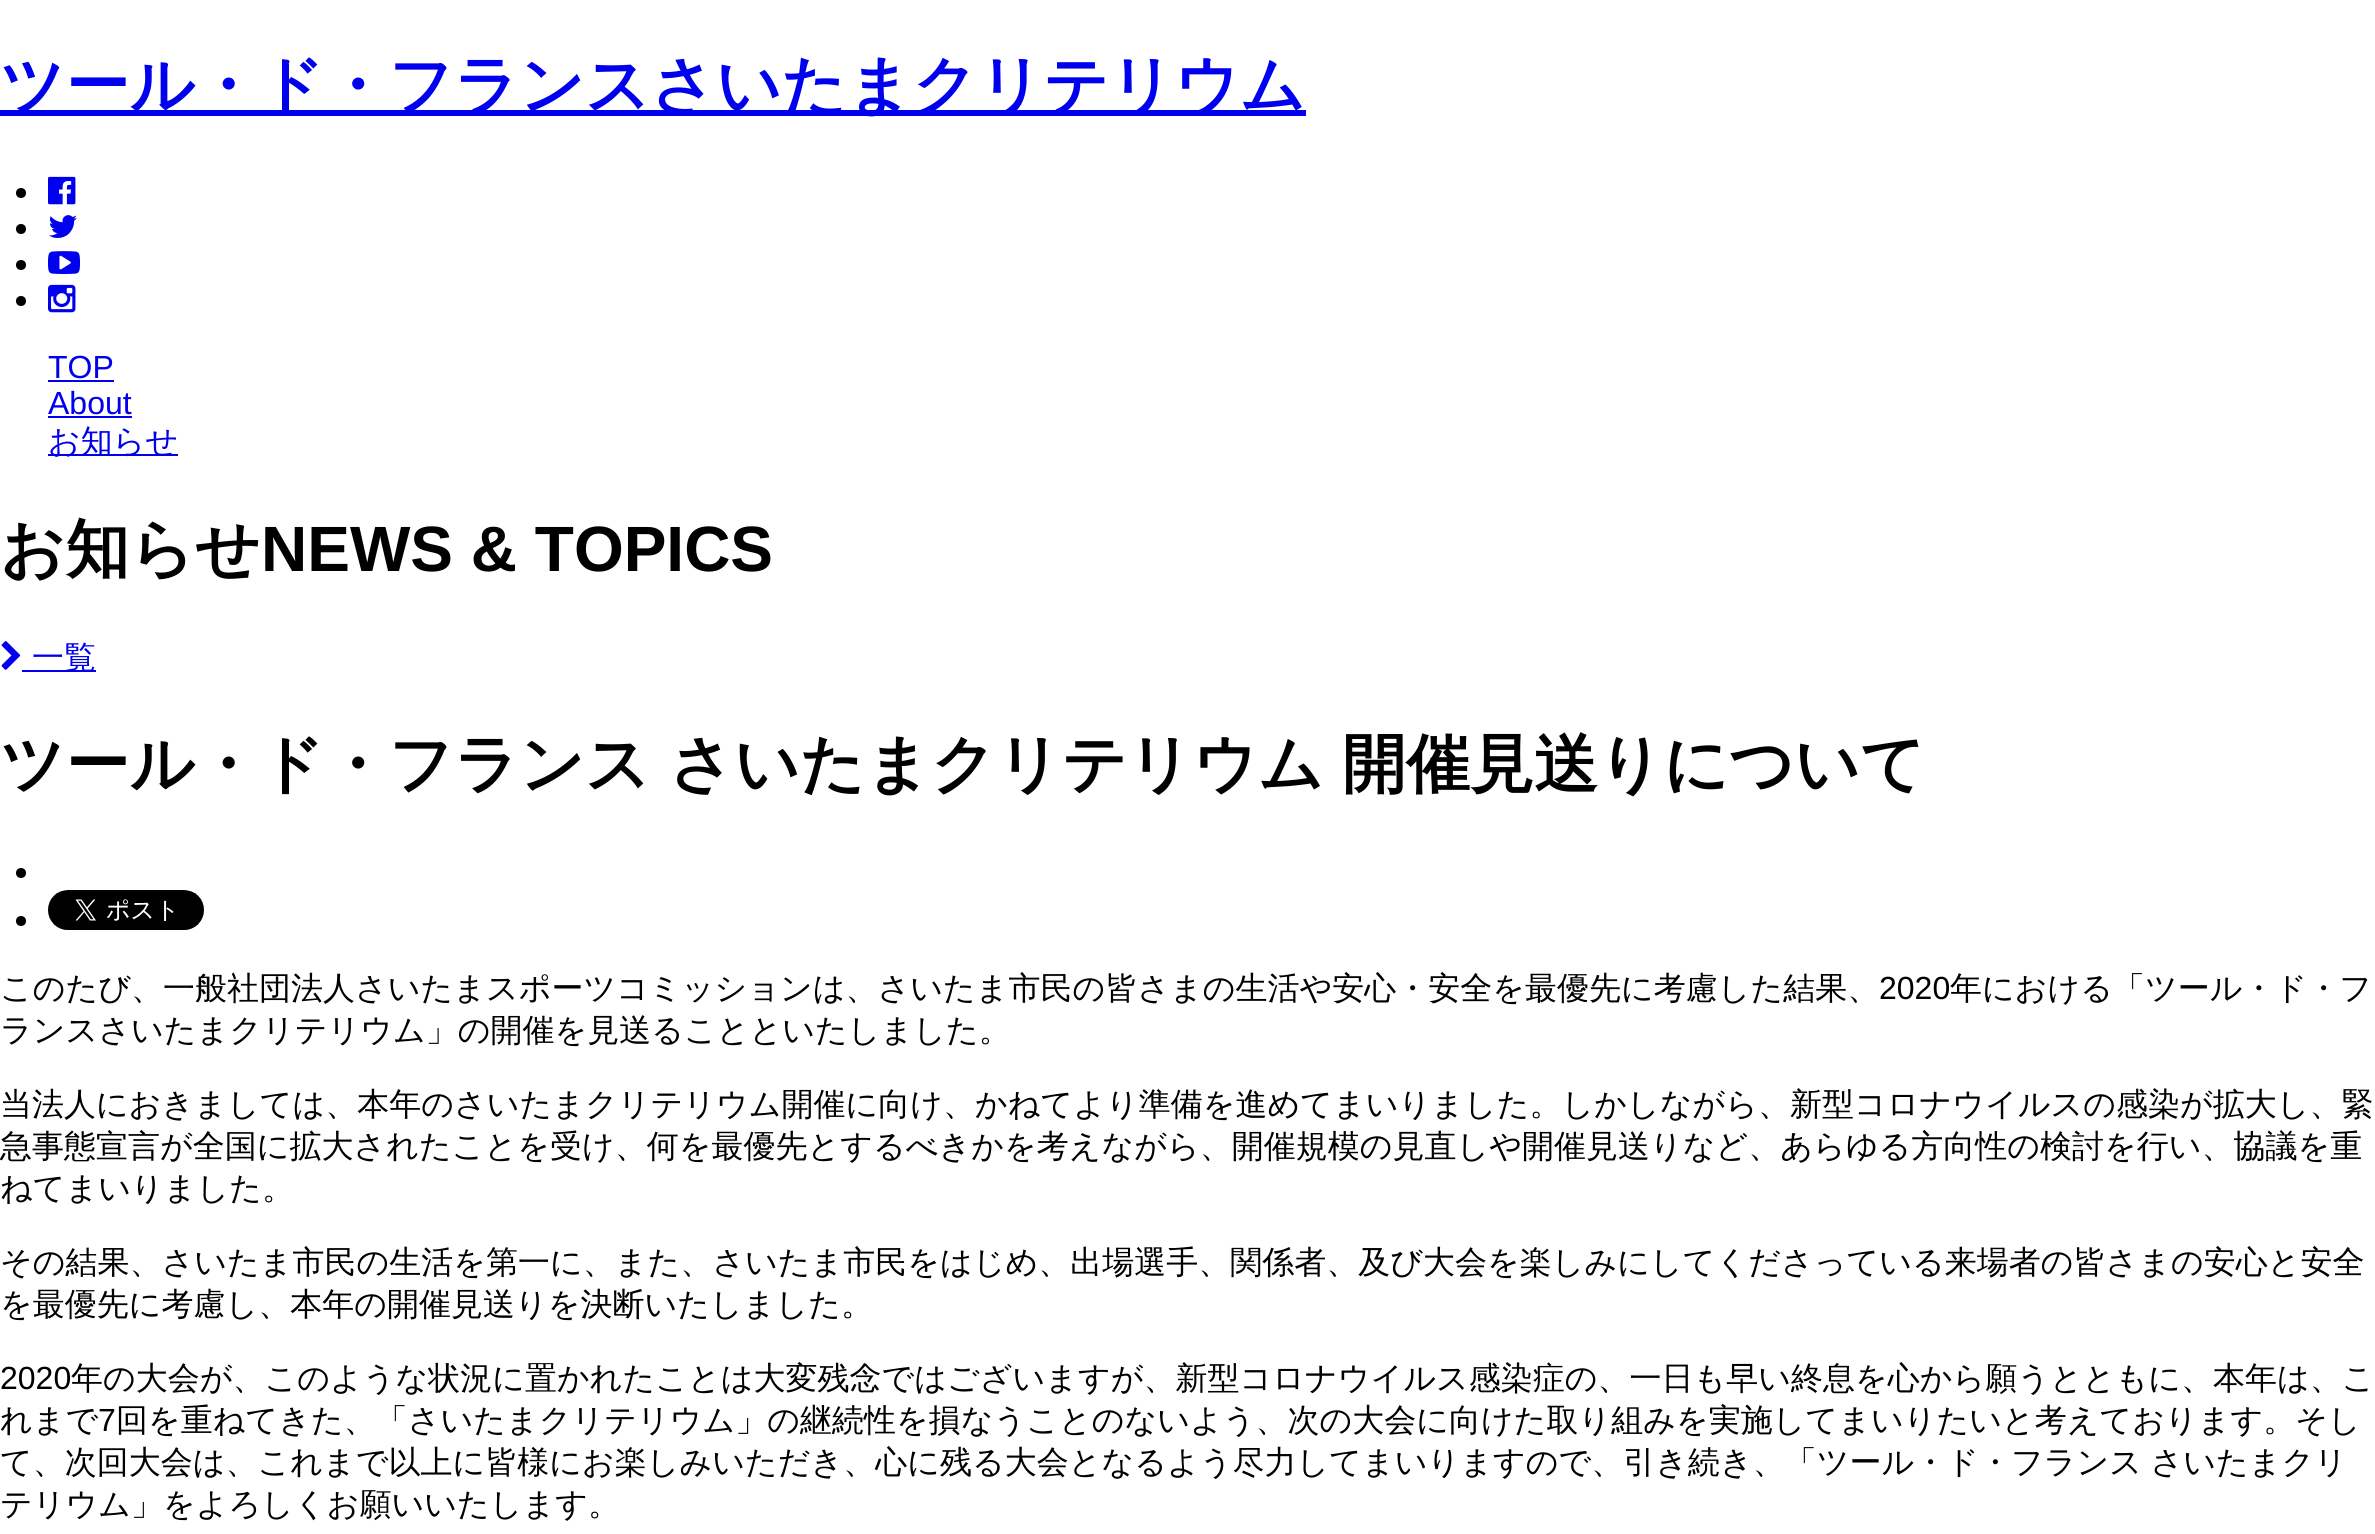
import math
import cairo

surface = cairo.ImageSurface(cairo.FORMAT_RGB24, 2375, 1534)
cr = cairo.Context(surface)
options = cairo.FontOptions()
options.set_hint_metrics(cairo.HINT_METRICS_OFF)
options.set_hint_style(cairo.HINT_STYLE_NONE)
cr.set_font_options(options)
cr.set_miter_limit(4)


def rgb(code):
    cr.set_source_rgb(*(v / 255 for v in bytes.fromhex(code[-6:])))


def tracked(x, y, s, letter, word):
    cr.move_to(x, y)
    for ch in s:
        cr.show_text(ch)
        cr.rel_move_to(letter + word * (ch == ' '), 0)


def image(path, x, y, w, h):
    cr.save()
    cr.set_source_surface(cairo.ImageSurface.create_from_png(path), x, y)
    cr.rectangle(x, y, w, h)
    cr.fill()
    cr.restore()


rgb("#ffffff")
cr.paint()
rgb("#0000ee")
cr.rectangle(0, 110, 1306, 6)
cr.fill()
rgb("#000000")
cr.arc(21, 193, 5, 0, 2 * math.pi)
cr.fill()
image("img/1.png", 48, 176, 28, 29)
cr.arc(21, 229, 5, 0, 2 * math.pi)
cr.fill()
image("img/2.png", 49, 215, 28, 23)
cr.arc(21, 265, 5, 0, 2 * math.pi)
cr.fill()
image("img/3.png", 48, 251, 32, 23)
cr.arc(21, 301, 5, 0, 2 * math.pi)
cr.fill()
image("img/4.png", 48, 284, 28, 29)
for x, y, w, h, color in [
    (48, 380, 66, 2, "#0000ee"),
    (48, 416, 84, 2, "#0000ee"),
    (48, 454, 130, 2, "#0000ee"),
]:
    rgb(color)
    cr.rectangle(x, y, w, h)
    cr.fill()
image("img/5.png", 1, 641, 20, 29)
cr.rectangle(22, 670, 74, 2)
cr.fill()
rgb("#000000")
cr.arc(21, 873, 5, 0, 2 * math.pi)
cr.fill()
cr.arc(21, 921, 5, 0, 2 * math.pi)
cr.fill()
image("img/6.png", 48, 890, 156, 40)
cr.select_font_face("WenQuanYi Zen Hei", cairo.FONT_SLANT_NORMAL, cairo.FONT_WEIGHT_BOLD)
cr.set_font_size(64)
rgb("#0000ee")
cr.move_to(0, 107)
cr.show_text("ツール・ド・フランスさいたまクリテリウム")
cr.select_font_face("Liberation Sans")
cr.set_font_size(32)
cr.move_to(48, 378)
cr.show_text("TOP")
cr.move_to(48, 414)
cr.show_text("About")
cr.select_font_face("WenQuanYi Zen Hei Medium")
cr.move_to(48, 452)
cr.show_text("お知らせ")
cr.select_font_face("WenQuanYi Zen Hei", cairo.FONT_SLANT_NORMAL, cairo.FONT_WEIGHT_BOLD)
cr.set_font_size(64)
rgb("#000000")
cr.move_to(0, 571)
cr.show_text("お知らせ")
cr.select_font_face("Liberation Sans", cairo.FONT_SLANT_NORMAL, cairo.FONT_WEIGHT_BOLD)
cr.move_to(261, 571)
cr.show_text("NEWS & TOPICS")
cr.select_font_face("WenQuanYi Zen Hei Medium")
cr.set_font_size(32)
rgb("#0000ee")
cr.move_to(32, 668)
cr.show_text("一覧")
cr.select_font_face("WenQuanYi Zen Hei", cairo.FONT_SLANT_NORMAL, cairo.FONT_WEIGHT_BOLD)
cr.set_font_size(64)
rgb("#000000")
tracked(0, 786, "ツール・ド・フランス さいたまクリテリウム 開催見送りについて", 0, -1)
cr.select_font_face("WenQuanYi Zen Hei Medium")
cr.set_font_size(32)
cr.move_to(0, 999)
cr.show_text("このたび、一般社団法人さいたまスポーツコミッションは、さいたま市民の皆さまの生活や安心・安全を最優先に考慮した結果、")
cr.select_font_face("Liberation Sans")
cr.move_to(1879, 999)
cr.show_text("2020")
cr.select_font_face("WenQuanYi Zen Hei Medium")
for x, y, s in [
    (1950, 999, "年における「ツール・ド・フ"),
    (0, 1041, "ランスさいたまクリテリウム」の開催を見送ることといたしました。"),
    (0, 1115, "当法人におきましては、本年のさいたまクリテリウム開催に向け、かねてより準備を進めてまいりました。しかしながら、新型コロナウイルスの感染が拡大し、緊"),
    (0, 1157, "急事態宣言が全国に拡大されたことを受け、何を最優先とするべきかを考えながら、開催規模の見直しや開催見送りなど、あらゆる方向性の検討を行い、協議を重"),
    (0, 1199, "ねてまいりました。"),
    (0, 1273, "その結果、さいたま市民の生活を第一に、また、さいたま市民をはじめ、出場選手、関係者、及び大会を楽しみにしてくださっている来場者の皆さまの安心と安全"),
    (0, 1315, "を最優先に考慮し、本年の開催見送りを決断いたしました。"),
]:
    cr.move_to(x, y)
    cr.show_text(s)
cr.select_font_face("Liberation Sans")
cr.move_to(0, 1389)
cr.show_text("2020")
cr.select_font_face("WenQuanYi Zen Hei Medium")
cr.move_to(71, 1389)
cr.show_text("年の大会が、このような状況に置かれたことは大変残念ではございますが、新型コロナウイルス感染症の、一日も早い終息を心から願うとともに、本年は、こ")
cr.move_to(0, 1431)
cr.show_text("れまで")
cr.select_font_face("Liberation Sans")
cr.move_to(98, 1431)
cr.show_text("7")
cr.select_font_face("WenQuanYi Zen Hei Medium")
cr.move_to(116, 1431)
cr.show_text("回を重ねてきた、「さいたまクリテリウム」の継続性を損なうことのないよう、次の大会に向けた取り組みを実施してまいりたいと考えております。そし")
tracked(0, 1473, "て、次回大会は、これまで以上に皆様にお楽しみいただき、心に残る大会となるよう尽力してまいりますので、引き続き、「ツール・ド・フランス さいたまクリ", 0, -1)
cr.move_to(0, 1515)
cr.show_text("テリウム」をよろしくお願いいたします。")
surface.write_to_png("page.png")
